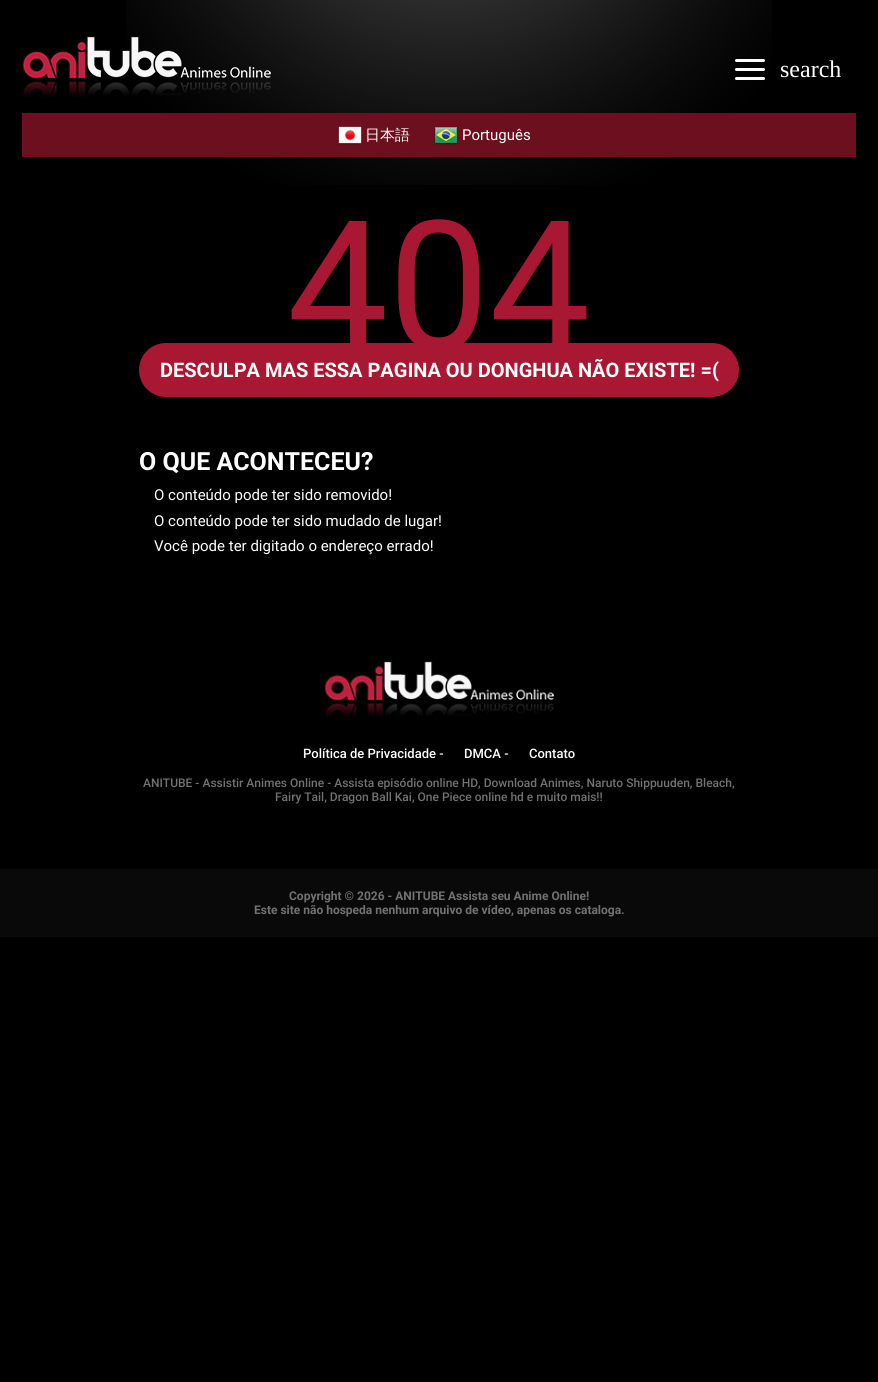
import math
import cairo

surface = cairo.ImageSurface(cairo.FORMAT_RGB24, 878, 1382)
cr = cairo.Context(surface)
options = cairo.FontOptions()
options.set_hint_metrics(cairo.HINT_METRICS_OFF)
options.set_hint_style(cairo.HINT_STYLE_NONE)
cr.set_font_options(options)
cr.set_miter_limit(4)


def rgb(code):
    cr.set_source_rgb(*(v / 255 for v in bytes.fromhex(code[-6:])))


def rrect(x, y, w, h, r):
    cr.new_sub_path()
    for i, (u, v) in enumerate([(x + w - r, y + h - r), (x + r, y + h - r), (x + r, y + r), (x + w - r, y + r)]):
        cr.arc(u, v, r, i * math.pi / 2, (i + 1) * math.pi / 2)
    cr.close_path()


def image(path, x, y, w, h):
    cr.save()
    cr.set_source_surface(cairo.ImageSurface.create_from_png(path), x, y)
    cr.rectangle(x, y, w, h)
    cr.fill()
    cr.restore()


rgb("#000000")
cr.paint()
image("img/1.png", 126, 0, 646, 185)
image("img/2.png", 22, 35, 249, 62)
rgb("#ffffff")
rrect(735, 59, 30, 3, 1.5)
cr.fill()
rrect(735, 68, 30, 3, 1.5)
cr.fill()
rrect(735, 77, 30, 3, 1.5)
cr.fill()
rgb("#6c0f1f")
cr.rectangle(22, 113, 834, 44)
cr.fill()
image("img/3.png", 338, 126, 24, 19)
image("img/4.png", 434, 126, 24, 19)
rgb("#a91833")
rrect(139, 343, 600, 54, 27)
cr.fill()
image("img/5.png", 324, 660, 230, 57)
rgb("#090909")
cr.rectangle(0, 869, 878, 68)
cr.fill()
cr.select_font_face("Liberation Serif")
cr.set_font_size(24)
rgb("#ffffff")
cr.move_to(780, 77)
cr.show_text("search")
cr.select_font_face("WenQuanYi Zen Hei Medium")
cr.set_font_size(15)
cr.move_to(365, 140)
cr.show_text("日本語")
cr.select_font_face("Roboto")
cr.move_to(462, 140)
cr.show_text("Português")
cr.set_font_size(180)
rgb("#a91833")
cr.move_to(287, 349)
cr.show_text("404")
cr.select_font_face("Roboto", cairo.FONT_SLANT_NORMAL, cairo.FONT_WEIGHT_BOLD)
cr.set_font_size(20)
rgb("#ffffff")
cr.move_to(160, 377)
cr.show_text("DESCULPA MAS ESSA PAGINA OU DONGHUA NÃO EXISTE! =(")
cr.set_font_size(25)
cr.move_to(139, 470)
cr.show_text("O QUE ACONTECEU?")
cr.select_font_face("Roboto")
cr.set_font_size(15)
for x, y, s in [
    (154, 500, "O conteúdo pode ter sido removido!"),
    (154, 526, "O conteúdo pode ter sido mudado de lugar!"),
    (154, 551, "Você pode ter digitado o endereço errado!"),
]:
    cr.move_to(x, y)
    cr.show_text(s)
cr.select_font_face("Roboto Medium")
cr.set_font_size(13)
for x, y, s in [
    (303, 758, "Política de Privacidade -"),
    (464, 758, "DMCA -"),
    (529, 758, "Contato"),
]:
    cr.move_to(x, y)
    cr.show_text(s)
cr.set_font_size(12)
rgb("#727272")
cr.move_to(143, 787)
cr.show_text("ANITUBE - Assistir Animes Online - Assista episódio online HD, Download Animes, Naruto Shippuuden, Bleach,")
cr.move_to(275, 801)
cr.show_text("Fairy Tail, Dragon Ball Kai, One Piece online hd e muito mais!!")
cr.select_font_face("Roboto", cairo.FONT_SLANT_NORMAL, cairo.FONT_WEIGHT_BOLD)
cr.move_to(289, 900)
cr.show_text("Copyright © 2026 - ANITUBE Assista seu Anime Online!")
cr.move_to(254, 914)
cr.show_text("Este site não hospeda nenhum arquivo de vídeo, apenas os cataloga.")
surface.write_to_png("page.png")
